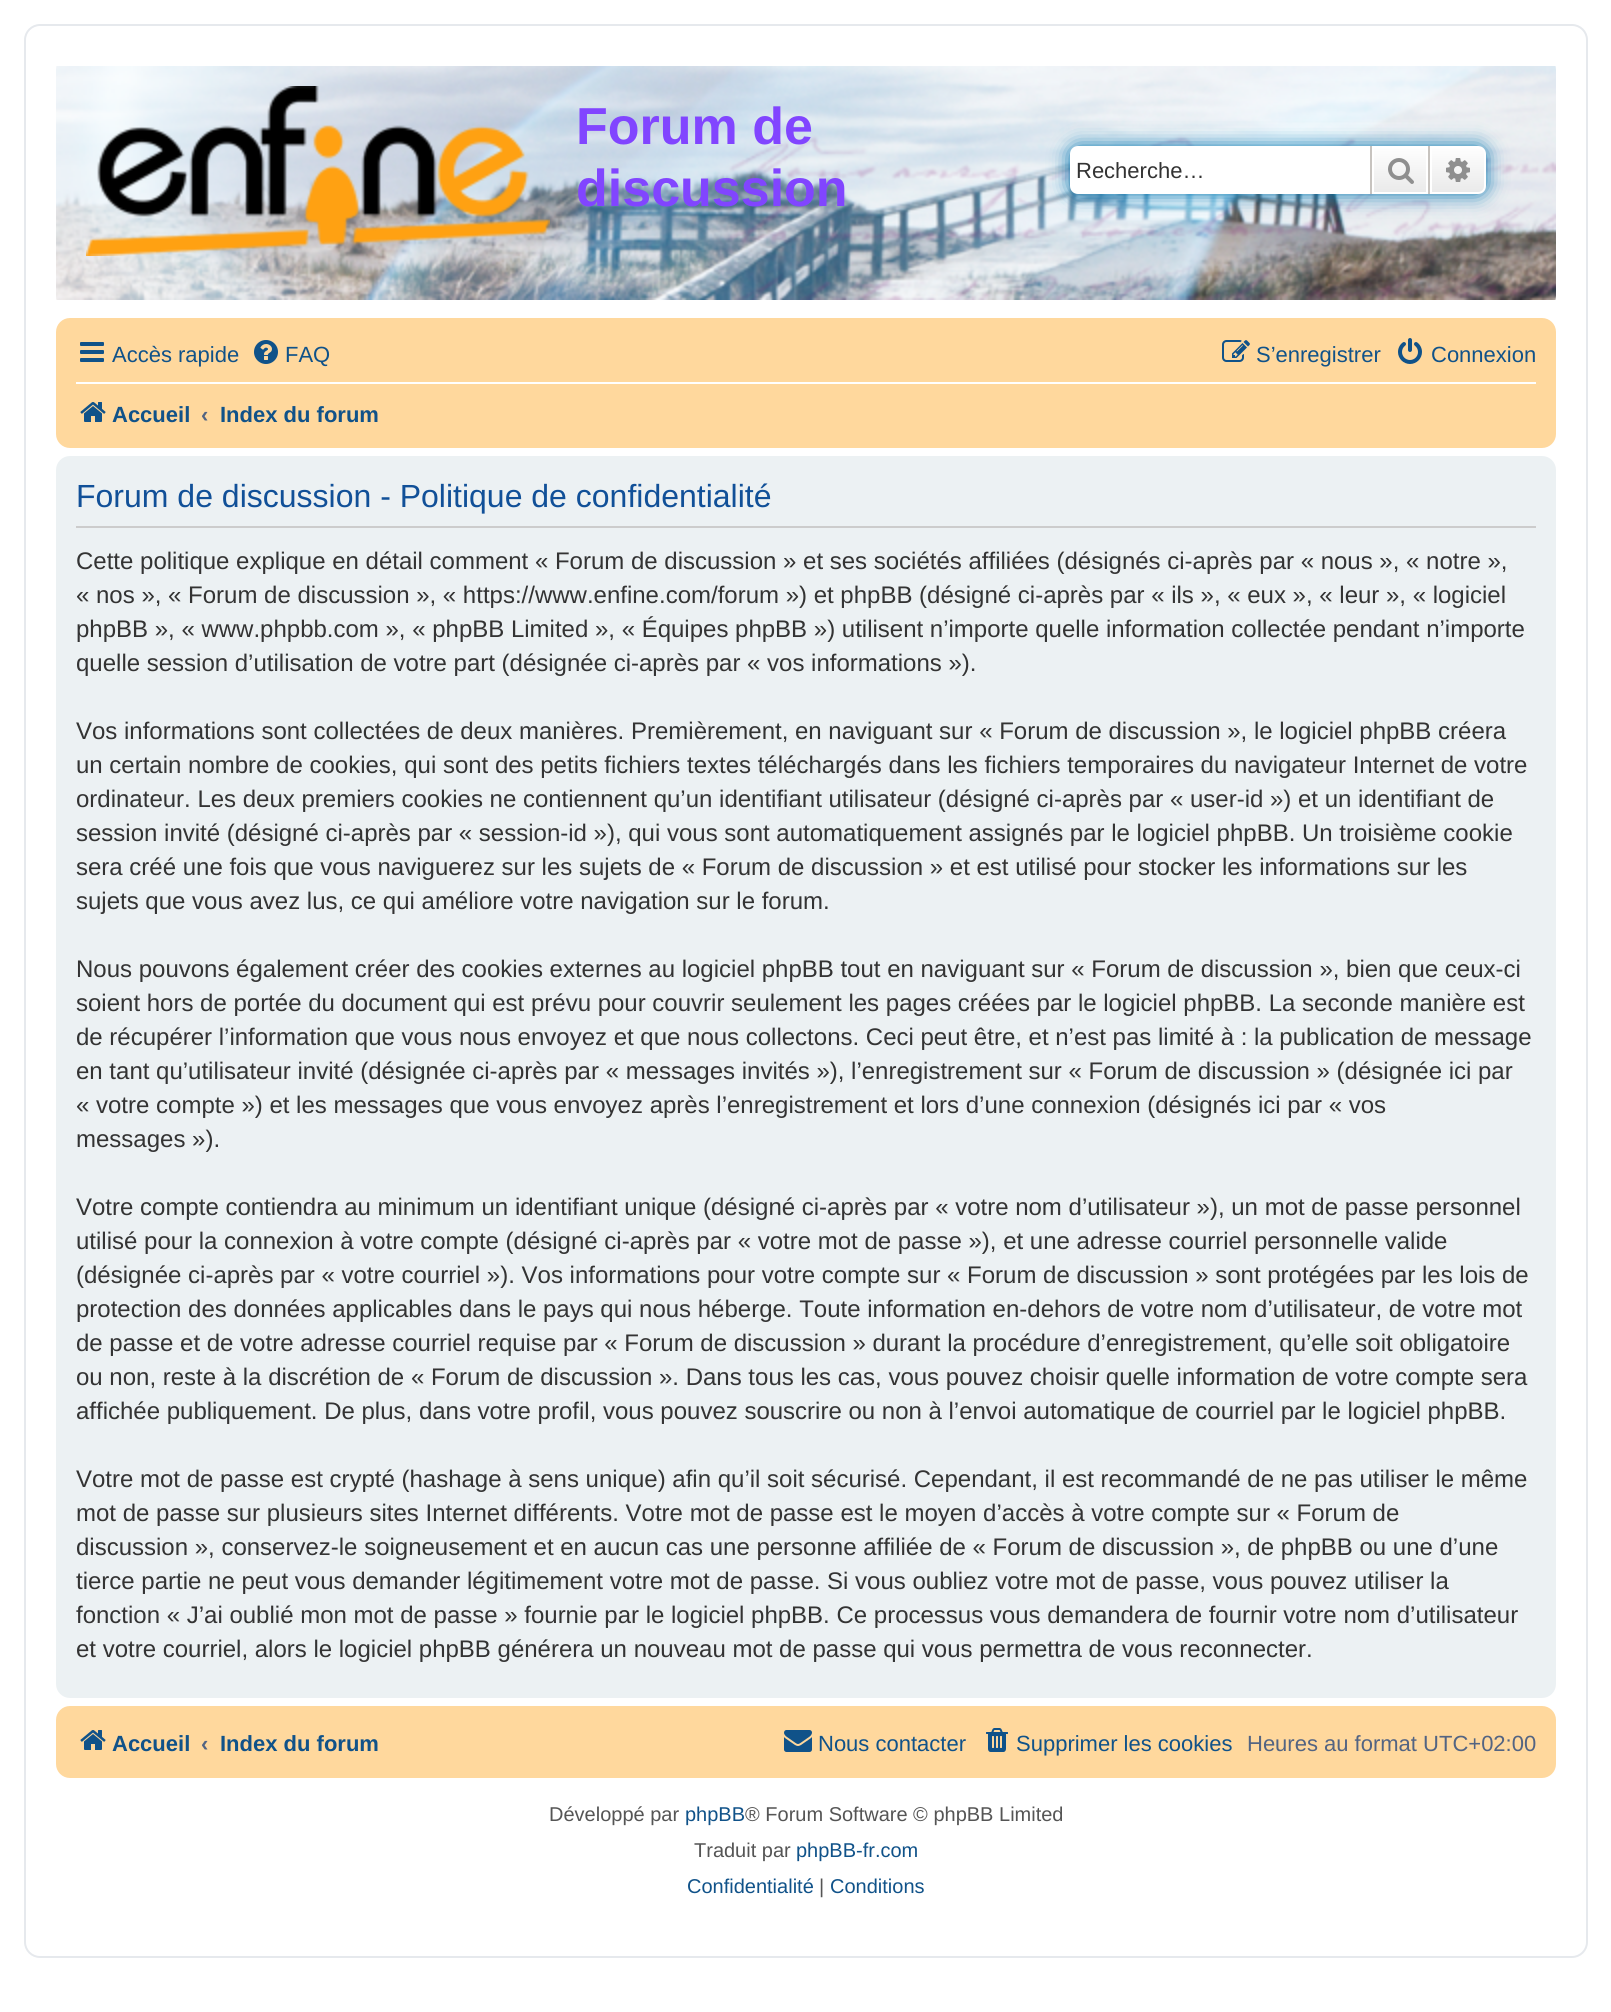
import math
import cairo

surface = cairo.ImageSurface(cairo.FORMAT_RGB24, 1611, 2012)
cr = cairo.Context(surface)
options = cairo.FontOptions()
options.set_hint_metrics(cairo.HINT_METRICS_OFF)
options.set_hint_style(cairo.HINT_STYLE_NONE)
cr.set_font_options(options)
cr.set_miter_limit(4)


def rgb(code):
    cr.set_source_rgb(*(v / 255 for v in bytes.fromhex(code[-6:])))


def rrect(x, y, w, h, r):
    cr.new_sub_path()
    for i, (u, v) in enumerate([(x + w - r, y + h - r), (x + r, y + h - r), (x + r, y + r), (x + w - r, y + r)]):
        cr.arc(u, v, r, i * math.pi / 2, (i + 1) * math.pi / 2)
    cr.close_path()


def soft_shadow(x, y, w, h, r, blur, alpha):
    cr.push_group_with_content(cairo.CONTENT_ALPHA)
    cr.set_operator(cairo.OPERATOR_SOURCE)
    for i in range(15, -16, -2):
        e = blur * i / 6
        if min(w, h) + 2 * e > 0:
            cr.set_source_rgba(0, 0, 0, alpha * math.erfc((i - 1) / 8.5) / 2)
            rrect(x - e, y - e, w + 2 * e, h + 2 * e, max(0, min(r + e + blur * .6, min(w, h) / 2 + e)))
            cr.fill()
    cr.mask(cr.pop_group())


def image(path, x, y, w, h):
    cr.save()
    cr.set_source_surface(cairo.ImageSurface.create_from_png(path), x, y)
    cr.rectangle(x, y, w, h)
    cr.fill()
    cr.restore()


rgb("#ffffff")
cr.paint()
rrect(25, 25, 1562, 1932, 15)
rgb("#e6e9ed")
cr.stroke()
image("img/1.png", 56, 66, 1500, 234)
image("img/2.png", 86, 86, 464, 170)
rgb("#0075b0")
soft_shadow(1070, 146, 416, 48, 8, 10, 1)
rgb("#ffffff")
cr.new_path()
cr.move_to(1078, 146)
cr.line_to(1370, 146)
cr.line_to(1370, 194)
cr.line_to(1078, 194)
cr.curve_to(1073.5, 194, 1070, 190.5, 1070, 186)
cr.line_to(1070, 154)
cr.curve_to(1070, 149.5, 1073.5, 146, 1078, 146)
cr.close_path()
cr.fill()
gradient = cairo.LinearGradient(1400, 146, 1400, 194)
gradient.add_color_stop_rgba(0, 1, 1, 1, 1)
gradient.add_color_stop_rgba(1, 0.914, 0.914, 0.914, 1)
cr.set_source(gradient)
cr.rectangle(1374, 148, 52, 44)
cr.fill()
cr.rectangle(1373, 147, 54, 46)
rgb("#ffffff")
cr.stroke()
rgb("#c7c3bf")
cr.rectangle(1428, 146, 2, 48)
cr.fill()
cr.rectangle(1370, 146, 2, 48)
cr.fill()
image("img/3.png", 1388, 158, 26, 26)
gradient = cairo.LinearGradient(1458, 146, 1458, 194)
gradient.add_color_stop_rgba(0, 1, 1, 1, 1)
gradient.add_color_stop_rgba(1, 0.914, 0.914, 0.914, 1)
cr.set_source(gradient)
cr.new_path()
cr.move_to(1431, 147)
cr.line_to(1478, 147)
cr.curve_to(1482, 147, 1485, 150, 1485, 154)
cr.line_to(1485, 186)
cr.curve_to(1485, 190, 1482, 193, 1478, 193)
cr.line_to(1431, 193)
cr.close_path()
cr.fill_preserve()
rgb("#ffffff")
cr.stroke()
image("img/4.png", 1446, 158, 24, 24)
rgb("#ffd89d")
rrect(56, 318, 1500, 130, 14)
cr.fill()
image("img/5.png", 80, 342, 24, 20)
image("img/6.png", 254, 340, 24, 24)
image("img/7.png", 1222, 340, 28, 22)
image("img/8.png", 1398, 338, 24, 26)
rgb("#ffffff")
cr.rectangle(76, 382, 1460, 2)
cr.fill()
image("img/9.png", 80, 402, 26, 20)
rgb("#ecf1f3")
rrect(56, 456, 1500, 1242, 14)
cr.fill()
rgb("#cccccc")
cr.rectangle(76, 526, 1460, 2)
cr.fill()
rgb("#ffd89d")
rrect(56, 1706, 1500, 72, 14)
cr.fill()
image("img/9.png", 80, 1730, 26, 20)
image("img/10.png", 784, 1730, 28, 22)
image("img/11.png", 986, 1728, 22, 24)
cr.select_font_face("Liberation Sans", cairo.FONT_SLANT_NORMAL, cairo.FONT_WEIGHT_BOLD)
cr.set_font_size(52)
rgb("#8145ff")
cr.move_to(576, 144)
cr.show_text("Forum de")
cr.move_to(576, 206)
cr.show_text("discussion")
cr.select_font_face("Liberation Sans")
cr.set_font_size(22)
rgb("#333333")
cr.move_to(1076, 178)
cr.show_text("Recherche…")
rgb("#105289")
for x, y, s in [
    (112, 362, "Accès rapide"),
    (285, 362, "FAQ"),
    (1256, 362, "S’enregistrer"),
    (1431, 362, "Connexion"),
]:
    cr.move_to(x, y)
    cr.show_text(s)
cr.select_font_face("Liberation Sans", cairo.FONT_SLANT_NORMAL, cairo.FONT_WEIGHT_BOLD)
cr.move_to(112, 422)
cr.show_text("Accueil")
rgb("#536482")
cr.move_to(201, 422)
cr.show_text("‹")
rgb("#105289")
cr.move_to(220, 422)
cr.show_text("Index du forum")
cr.select_font_face("Liberation Sans")
cr.set_font_size(32)
rgb("#115098")
cr.move_to(76, 507)
cr.show_text("Forum de discussion - Politique de confidentialité")
cr.set_font_size(24)
rgb("#333333")
for x, y, s in [
    (76, 569, "Cette politique explique en détail comment « Forum de discussion » et ses sociétés affiliées (désignés ci-après par « nous », « notre »,"),
    (76, 603, "« nos », « Forum de discussion », « https://www.enfine.com/forum ») et phpBB (désigné ci-après par « ils », « eux », « leur », « logiciel"),
    (76, 637, "phpBB », « www.phpbb.com », « phpBB Limited », « Équipes phpBB ») utilisent n’importe quelle information collectée pendant n’importe"),
    (76, 671, "quelle session d’utilisation de votre part (désignée ci-après par « vos informations »)."),
    (76, 739, "Vos informations sont collectées de deux manières. Premièrement, en naviguant sur « Forum de discussion », le logiciel phpBB créera"),
    (76, 773, "un certain nombre de cookies, qui sont des petits fichiers textes téléchargés dans les fichiers temporaires du navigateur Internet de votre"),
    (76, 807, "ordinateur. Les deux premiers cookies ne contiennent qu’un identifiant utilisateur (désigné ci-après par « user-id ») et un identifiant de"),
    (76, 841, "session invité (désigné ci-après par « session-id »), qui vous sont automatiquement assignés par le logiciel phpBB. Un troisième cookie"),
    (76, 875, "sera créé une fois que vous naviguerez sur les sujets de « Forum de discussion » et est utilisé pour stocker les informations sur les"),
    (76, 909, "sujets que vous avez lus, ce qui améliore votre navigation sur le forum."),
    (76, 977, "Nous pouvons également créer des cookies externes au logiciel phpBB tout en naviguant sur « Forum de discussion », bien que ceux-ci"),
    (76, 1011, "soient hors de portée du document qui est prévu pour couvrir seulement les pages créées par le logiciel phpBB. La seconde manière est"),
    (76, 1045, "de récupérer l’information que vous nous envoyez et que nous collectons. Ceci peut être, et n’est pas limité à : la publication de message"),
    (76, 1079, "en tant qu’utilisateur invité (désignée ci-après par « messages invités »), l’enregistrement sur « Forum de discussion » (désignée ici par"),
    (76, 1113, "« votre compte ») et les messages que vous envoyez après l’enregistrement et lors d’une connexion (désignés ici par « vos"),
    (76, 1147, "messages »)."),
    (76, 1215, "Votre compte contiendra au minimum un identifiant unique (désigné ci-après par « votre nom d’utilisateur »), un mot de passe personnel"),
    (76, 1249, "utilisé pour la connexion à votre compte (désigné ci-après par « votre mot de passe »), et une adresse courriel personnelle valide"),
    (76, 1283, "(désignée ci-après par « votre courriel »). Vos informations pour votre compte sur « Forum de discussion » sont protégées par les lois de"),
    (76, 1317, "protection des données applicables dans le pays qui nous héberge. Toute information en-dehors de votre nom d’utilisateur, de votre mot"),
    (76, 1351, "de passe et de votre adresse courriel requise par « Forum de discussion » durant la procédure d’enregistrement, qu’elle soit obligatoire"),
    (76, 1385, "ou non, reste à la discrétion de « Forum de discussion ». Dans tous les cas, vous pouvez choisir quelle information de votre compte sera"),
    (76, 1419, "affichée publiquement. De plus, dans votre profil, vous pouvez souscrire ou non à l’envoi automatique de courriel par le logiciel phpBB."),
    (76, 1487, "Votre mot de passe est crypté (hashage à sens unique) afin qu’il soit sécurisé. Cependant, il est recommandé de ne pas utiliser le même"),
    (76, 1521, "mot de passe sur plusieurs sites Internet différents. Votre mot de passe est le moyen d’accès à votre compte sur « Forum de"),
    (76, 1555, "discussion », conservez-le soigneusement et en aucun cas une personne affiliée de « Forum de discussion », de phpBB ou une d’une"),
    (76, 1589, "tierce partie ne peut vous demander légitimement votre mot de passe. Si vous oubliez votre mot de passe, vous pouvez utiliser la"),
    (76, 1623, "fonction « J’ai oublié mon mot de passe » fournie par le logiciel phpBB. Ce processus vous demandera de fournir votre nom d’utilisateur"),
    (76, 1657, "et votre courriel, alors le logiciel phpBB générera un nouveau mot de passe qui vous permettra de vous reconnecter."),
]:
    cr.move_to(x, y)
    cr.show_text(s)
cr.select_font_face("Liberation Sans", cairo.FONT_SLANT_NORMAL, cairo.FONT_WEIGHT_BOLD)
cr.set_font_size(22)
rgb("#105289")
cr.move_to(112, 1751)
cr.show_text("Accueil")
rgb("#536482")
cr.move_to(201, 1751)
cr.show_text("‹")
rgb("#105289")
cr.move_to(220, 1751)
cr.show_text("Index du forum")
cr.select_font_face("Liberation Sans")
cr.move_to(818, 1751)
cr.show_text("Nous contacter")
cr.move_to(1016, 1751)
cr.show_text("Supprimer les cookies")
rgb("#536482")
cr.move_to(1247, 1751)
cr.show_text("Heures au format UTC+02:00")
cr.set_font_size(20)
rgb("#555555")
cr.move_to(549, 1821)
cr.show_text("Développé par")
rgb("#105289")
cr.move_to(685, 1821)
cr.show_text("phpBB")
rgb("#555555")
cr.move_to(745, 1821)
cr.show_text("® Forum Software © phpBB Limited")
cr.move_to(694, 1857)
cr.show_text("Traduit par")
rgb("#105289")
cr.move_to(796, 1857)
cr.show_text("phpBB-fr.com")
cr.move_to(687, 1893)
cr.show_text("Confidentialité")
rgb("#555555")
cr.move_to(819, 1893)
cr.show_text("|")
rgb("#105289")
cr.move_to(830, 1893)
cr.show_text("Conditions")
surface.write_to_png("page.png")
